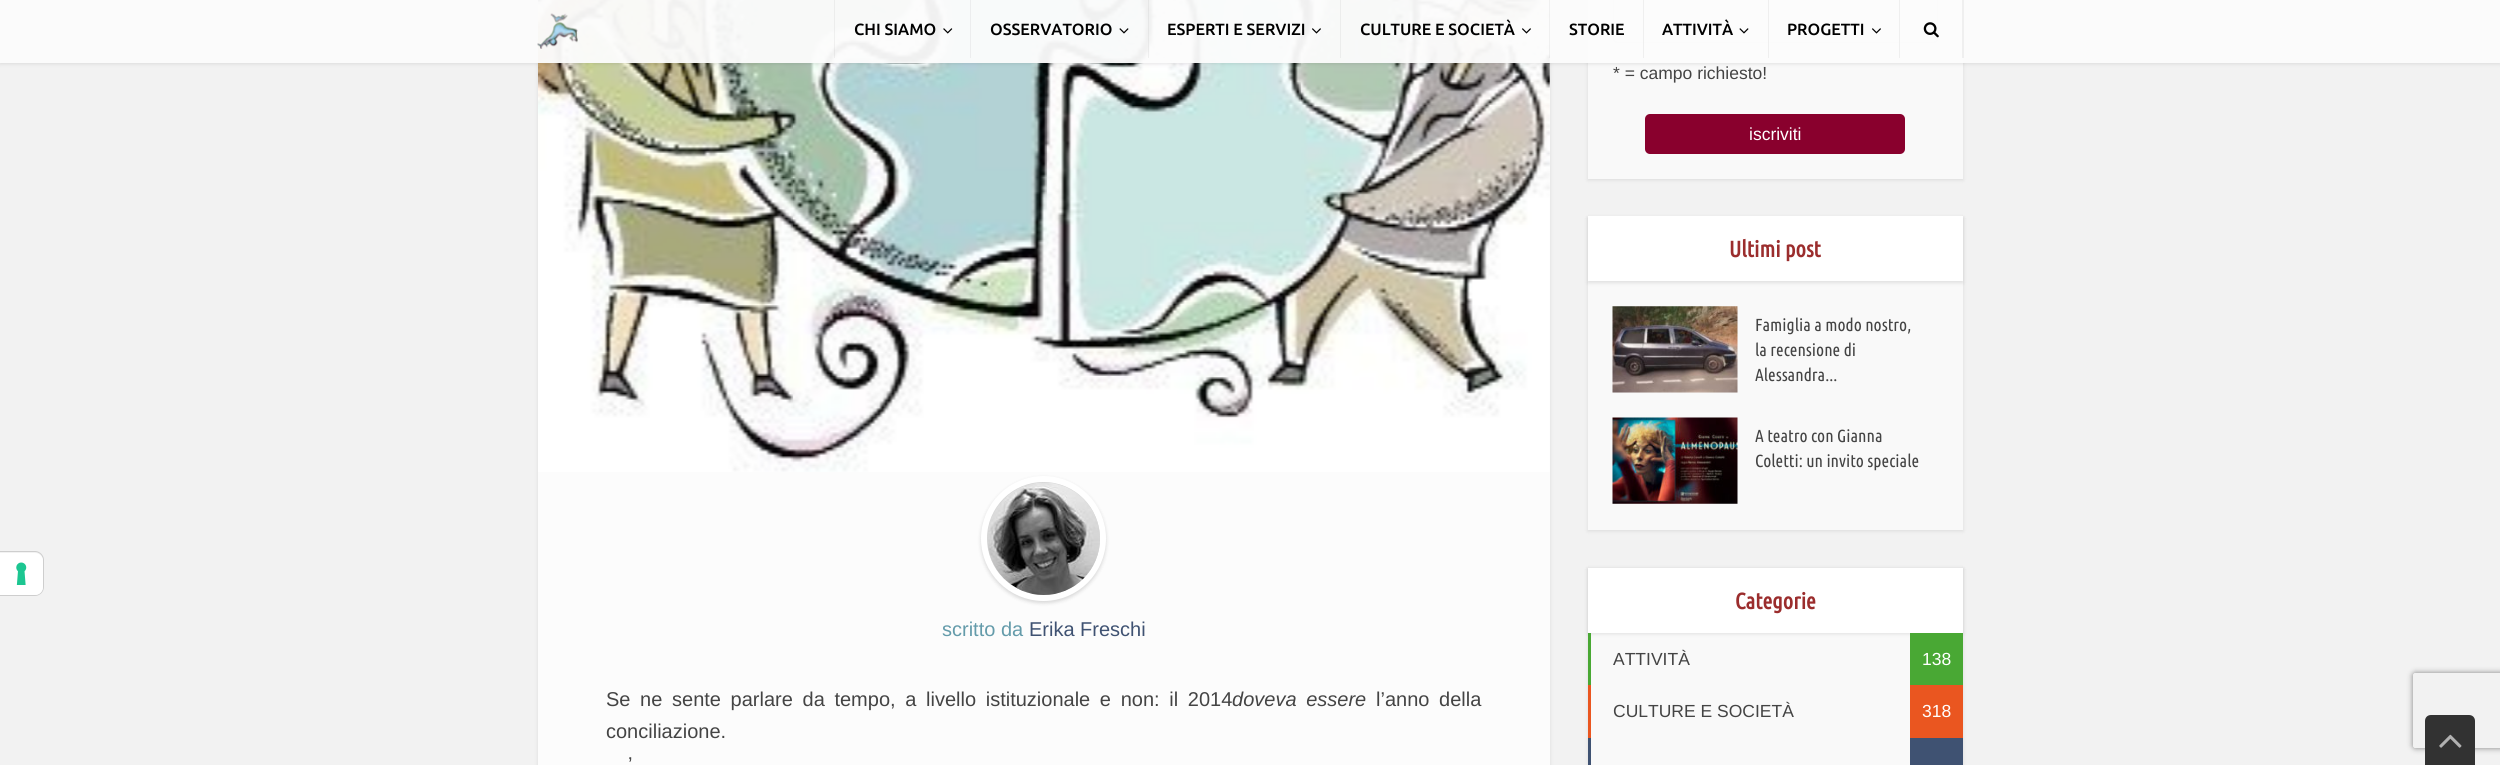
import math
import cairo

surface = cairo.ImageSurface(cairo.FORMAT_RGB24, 2500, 765)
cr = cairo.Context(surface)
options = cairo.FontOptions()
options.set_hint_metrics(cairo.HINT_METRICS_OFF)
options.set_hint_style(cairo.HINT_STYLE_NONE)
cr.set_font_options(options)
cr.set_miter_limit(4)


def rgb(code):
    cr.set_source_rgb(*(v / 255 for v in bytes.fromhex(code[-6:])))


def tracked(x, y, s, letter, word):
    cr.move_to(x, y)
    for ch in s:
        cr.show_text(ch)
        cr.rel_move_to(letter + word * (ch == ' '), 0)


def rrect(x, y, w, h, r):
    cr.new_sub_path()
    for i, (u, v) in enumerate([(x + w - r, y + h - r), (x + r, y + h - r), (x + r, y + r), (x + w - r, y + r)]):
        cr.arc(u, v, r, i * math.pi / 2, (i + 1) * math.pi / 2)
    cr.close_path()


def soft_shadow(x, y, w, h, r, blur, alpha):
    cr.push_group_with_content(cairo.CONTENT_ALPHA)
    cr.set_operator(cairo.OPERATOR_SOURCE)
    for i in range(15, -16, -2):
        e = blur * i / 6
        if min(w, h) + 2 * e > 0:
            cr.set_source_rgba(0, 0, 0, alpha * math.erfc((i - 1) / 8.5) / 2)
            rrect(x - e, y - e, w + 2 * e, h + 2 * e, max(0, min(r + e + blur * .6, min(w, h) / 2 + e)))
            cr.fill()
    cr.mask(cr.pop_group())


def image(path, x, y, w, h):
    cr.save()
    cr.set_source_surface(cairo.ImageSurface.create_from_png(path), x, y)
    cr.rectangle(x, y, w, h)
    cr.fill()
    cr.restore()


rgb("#f2f2f2")
cr.paint()
cr.new_path()
cr.move_to(-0.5, 551.5)
cr.line_to(35, 551.5)
cr.curve_to(39.5, 551.5, 43.5, 555.5, 43.5, 560)
cr.line_to(43.5, 587)
cr.curve_to(43.5, 591.5, 39.5, 595.5, 35, 595.5)
cr.line_to(-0.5, 595.5)
cr.close_path()
rgb("#cecece")
cr.set_line_width(1)
cr.stroke()
rgb("#ffffff")
cr.new_path()
cr.move_to(0, 553)
cr.line_to(35, 553)
cr.curve_to(39.5, 553, 43, 556.5, 43, 561)
cr.line_to(43, 587)
cr.curve_to(43, 591.5, 39.5, 595, 35, 595)
cr.line_to(0, 595)
cr.close_path()
cr.fill()
image("img/1.png", 16, 562, 11, 23)
rgb("#000000")
soft_shadow(538, -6, 1012, 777, 0, 2, 0.1)
rgb("#fcfcfc")
cr.rectangle(538, 0, 1012, 765)
cr.fill()
image("img/10.png", 538, 0, 1012, 472)
rgb("#000000")
soft_shadow(1588, -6, 375, 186, 0, 2, 0.1)
rgb("#f9f9f9")
cr.rectangle(1588, 0, 375, 179)
cr.fill()
rrect(1613.5, -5.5, 324, 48, 4.5)
rgb("#e0e0e0")
cr.stroke()
cr.save()
cr.set_fill_rule(cairo.FILL_RULE_EVEN_ODD)
cr.new_path()
cr.move_to(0, 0)
cr.line_to(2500, 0)
cr.line_to(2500, 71)
cr.line_to(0, 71)
cr.close_path()
cr.move_to(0, 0)
cr.line_to(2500, 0)
cr.line_to(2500, 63)
cr.line_to(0, 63)
cr.close_path()
cr.clip()
rgb("#000000")
soft_shadow(0, 1, 2500, 63, 0, 2, 0.1)
cr.restore()
cr.set_source_rgba(0.988, 0.988, 0.988, 0.95)
cr.rectangle(0, 0, 2500, 63)
cr.fill()
image("img/2.png", 537, 13, 41, 36)
cr.set_source_rgba(0, 0, 0, 0.05)
cr.new_path()
cr.move_to(834, 0)
cr.line_to(834, 58)
cr.line_to(970, 58)
cr.line_to(835, 58)
cr.line_to(835, 0)
cr.close_path()
cr.fill()
image("img/3.png", 943, 28, 10, 6)
rgb("#ecedee")
cr.new_path()
cr.move_to(970, 0)
cr.line_to(970, 58)
cr.line_to(1148, 58)
cr.line_to(971, 58)
cr.line_to(971, 0)
cr.close_path()
cr.fill()
image("img/4.png", 1119, 28, 10, 6)
cr.set_source_rgba(0, 0, 0, 0.05)
cr.new_path()
cr.move_to(1148, 0)
cr.line_to(1148, 58)
cr.line_to(1340, 58)
cr.line_to(1149, 58)
cr.line_to(1149, 0)
cr.close_path()
cr.fill()
image("img/5.png", 1312, 28, 9, 6)
rgb("#ecedec")
cr.new_path()
cr.move_to(1340, 0)
cr.line_to(1340, 58)
cr.line_to(1549, 58)
cr.line_to(1341, 58)
cr.line_to(1341, 0)
cr.close_path()
cr.fill()
image("img/6.png", 1522, 28, 9, 6)
cr.set_source_rgba(0, 0, 0, 0.05)
cr.new_path()
cr.move_to(1549, 0)
cr.line_to(1549, 58)
cr.line_to(1643, 58)
cr.line_to(1550, 58)
cr.line_to(1550, 0)
cr.close_path()
cr.fill()
rgb("#efefef")
cr.new_path()
cr.move_to(1643, 0)
cr.line_to(1643, 58)
cr.line_to(1768, 58)
cr.line_to(1644, 58)
cr.line_to(1644, 0)
cr.close_path()
cr.fill()
image("img/7.png", 1739, 28, 10, 6)
cr.new_path()
cr.move_to(1768, 0)
cr.line_to(1768, 58)
cr.line_to(1899, 58)
cr.line_to(1769, 58)
cr.line_to(1769, 0)
cr.close_path()
cr.fill()
image("img/8.png", 1872, 28, 9, 6)
cr.new_path()
cr.move_to(1901, 58)
cr.line_to(1964, 58)
cr.line_to(1964, 0)
cr.line_to(1962, 0)
cr.line_to(1962, 58)
cr.close_path()
cr.fill()
cr.new_path()
cr.move_to(1899, 0)
cr.line_to(1899, 58)
cr.line_to(1961, 58)
cr.line_to(1900, 58)
cr.line_to(1900, 0)
cr.close_path()
cr.fill()
image("img/9.png", 1923, 22, 16, 16)
rgb("#000000")
soft_shadow(981, 478, 125, 125, 62.5, 2, 0.15)
cr.arc(1043.5, 538.5, 59.5, 0, 2 * math.pi)
rgb("#ffffff")
cr.set_line_width(6)
cr.stroke()
image("img/11.png", 987, 482, 113, 113)
rgb("#89002d")
rrect(1645, 114, 260, 40, 5)
cr.fill()
rgb("#000000")
soft_shadow(1588, 218, 375, 313, 0, 2, 0.1)
rgb("#f9f9f9")
cr.rectangle(1588, 281, 375, 249)
cr.fill()
rgb("#000000")
soft_shadow(1588, 218, 375, 65, 0, 2, 0.1)
rgb("#ffffff")
cr.rectangle(1588, 216, 375, 65)
cr.fill()
image("img/12.png", 1612, 306, 126, 87)
image("img/13.png", 1612, 417, 126, 87)
rgb("#000000")
soft_shadow(1588, 569, 375, 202, 0, 2, 0.1)
rgb("#f9f9f9")
cr.rectangle(1591, 633, 319, 132)
cr.fill()
rgb("#000000")
soft_shadow(1588, 569, 375, 65, 0, 2, 0.1)
for x, y, w, h, color in [
    (1588, 568, 375, 65, "#ffffff"),
    (1588, 633, 3, 52, "#49a834"),
    (1910, 633, 53, 52, "#49a834"),
    (1588, 685, 3, 53, "#ea5620"),
    (1910, 685, 53, 53, "#ea5620"),
    (1588, 738, 3, 27, "#3f5272"),
    (1910, 738, 53, 27, "#3f5272"),
]:
    rgb(color)
    cr.rectangle(x, y, w, h)
    cr.fill()
cr.save()
cr.set_fill_rule(cairo.FILL_RULE_EVEN_ODD)
cr.new_path()
cr.move_to(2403, 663)
cr.line_to(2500, 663)
cr.line_to(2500, 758)
cr.line_to(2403, 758)
cr.close_path()
cr.move_to(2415.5, 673)
cr.line_to(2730.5, 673)
cr.curve_to(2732, 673, 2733, 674, 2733, 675.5)
cr.line_to(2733, 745.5)
cr.curve_to(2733, 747, 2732, 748, 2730.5, 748)
cr.line_to(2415.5, 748)
cr.curve_to(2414, 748, 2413, 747, 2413, 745.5)
cr.line_to(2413, 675.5)
cr.curve_to(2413, 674, 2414, 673, 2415.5, 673)
cr.close_path()
cr.clip()
rgb("#808080")
soft_shadow(2413, 673, 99, 75, 2.5, 3, 1)
cr.restore()
rgb("#323232")
cr.new_path()
cr.move_to(2431, 715)
cr.line_to(2469, 715)
cr.curve_to(2472.5, 715, 2475, 717.5, 2475, 721)
cr.line_to(2475, 765)
cr.line_to(2425, 765)
cr.line_to(2425, 721)
cr.curve_to(2425, 717.5, 2427.5, 715, 2431, 715)
cr.close_path()
cr.fill()
image("img/14.png", 2439, 734, 23, 14)
cr.select_font_face("Ubuntu Medium")
cr.set_font_size(16.25)
rgb("#000000")
for x, y, s in [
    (854, 35, "CHI SIAMO"),
    (990, 35, "OSSERVATORIO"),
    (1167, 35, "ESPERTI E SERVIZI"),
    (1360, 35, "CULTURE E SOCIETÀ"),
    (1569, 35, "STORIE"),
    (1662, 35, "ATTIVITÀ"),
    (1787, 35, "PROGETTI"),
]:
    cr.move_to(x, y)
    cr.show_text(s)
cr.select_font_face("Liberation Sans")
cr.set_font_size(20)
rgb("#649baa")
cr.move_to(942, 636)
cr.show_text("scritto da")
rgb("#3f5272")
cr.move_to(1029, 636)
cr.show_text("Erika Freschi")
rgb("#444444")
tracked(606, 706, "Se ne sente parlare da tempo, a livello istituzionale e non: il 2014", 0, 4.1)
cr.select_font_face("Liberation Sans", cairo.FONT_SLANT_ITALIC)
tracked(1232, 706, "doveva essere", 0, 4.1)
cr.select_font_face("Liberation Sans")
tracked(1376, 706, "l’anno della", 0, 4.1)
cr.move_to(606, 738)
cr.show_text("conciliazione.")
tracked(628, 771, "’", 0, 4)
cr.set_font_size(17.5)
cr.move_to(1613, 79)
cr.show_text("* = campo richiesto!")
rgb("#ffffff")
cr.move_to(1749, 140)
cr.show_text("iscriviti")
cr.select_font_face("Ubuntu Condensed", cairo.FONT_SLANT_NORMAL, cairo.FONT_WEIGHT_BOLD)
cr.set_font_size(22.5)
rgb("#9b2d2d")
cr.move_to(1729, 257)
cr.show_text("Ultimi post")
cr.select_font_face("Ubuntu Condensed")
cr.set_font_size(17.5)
rgb("#444444")
for x, y, s in [
    (1755, 331, "Famiglia a modo nostro,"),
    (1755, 356, "la recensione di"),
    (1755, 381, "Alessandra..."),
    (1755, 442, "A teatro con Gianna"),
    (1755, 467, "Coletti: un invito speciale"),
]:
    cr.move_to(x, y)
    cr.show_text(s)
cr.select_font_face("Ubuntu Condensed", cairo.FONT_SLANT_NORMAL, cairo.FONT_WEIGHT_BOLD)
cr.set_font_size(22.5)
rgb("#9b2d2d")
cr.move_to(1735, 609)
cr.show_text("Categorie")
cr.select_font_face("Liberation Sans")
cr.set_font_size(17.5)
rgb("#444444")
cr.move_to(1613, 665)
cr.show_text("ATTIVITÀ")
rgb("#ffffff")
cr.move_to(1922, 665)
cr.show_text("138")
rgb("#444444")
cr.move_to(1613, 717)
cr.show_text("CULTURE E SOCIETÀ")
rgb("#ffffff")
cr.move_to(1922, 717)
cr.show_text("318")
surface.write_to_png("page.png")
